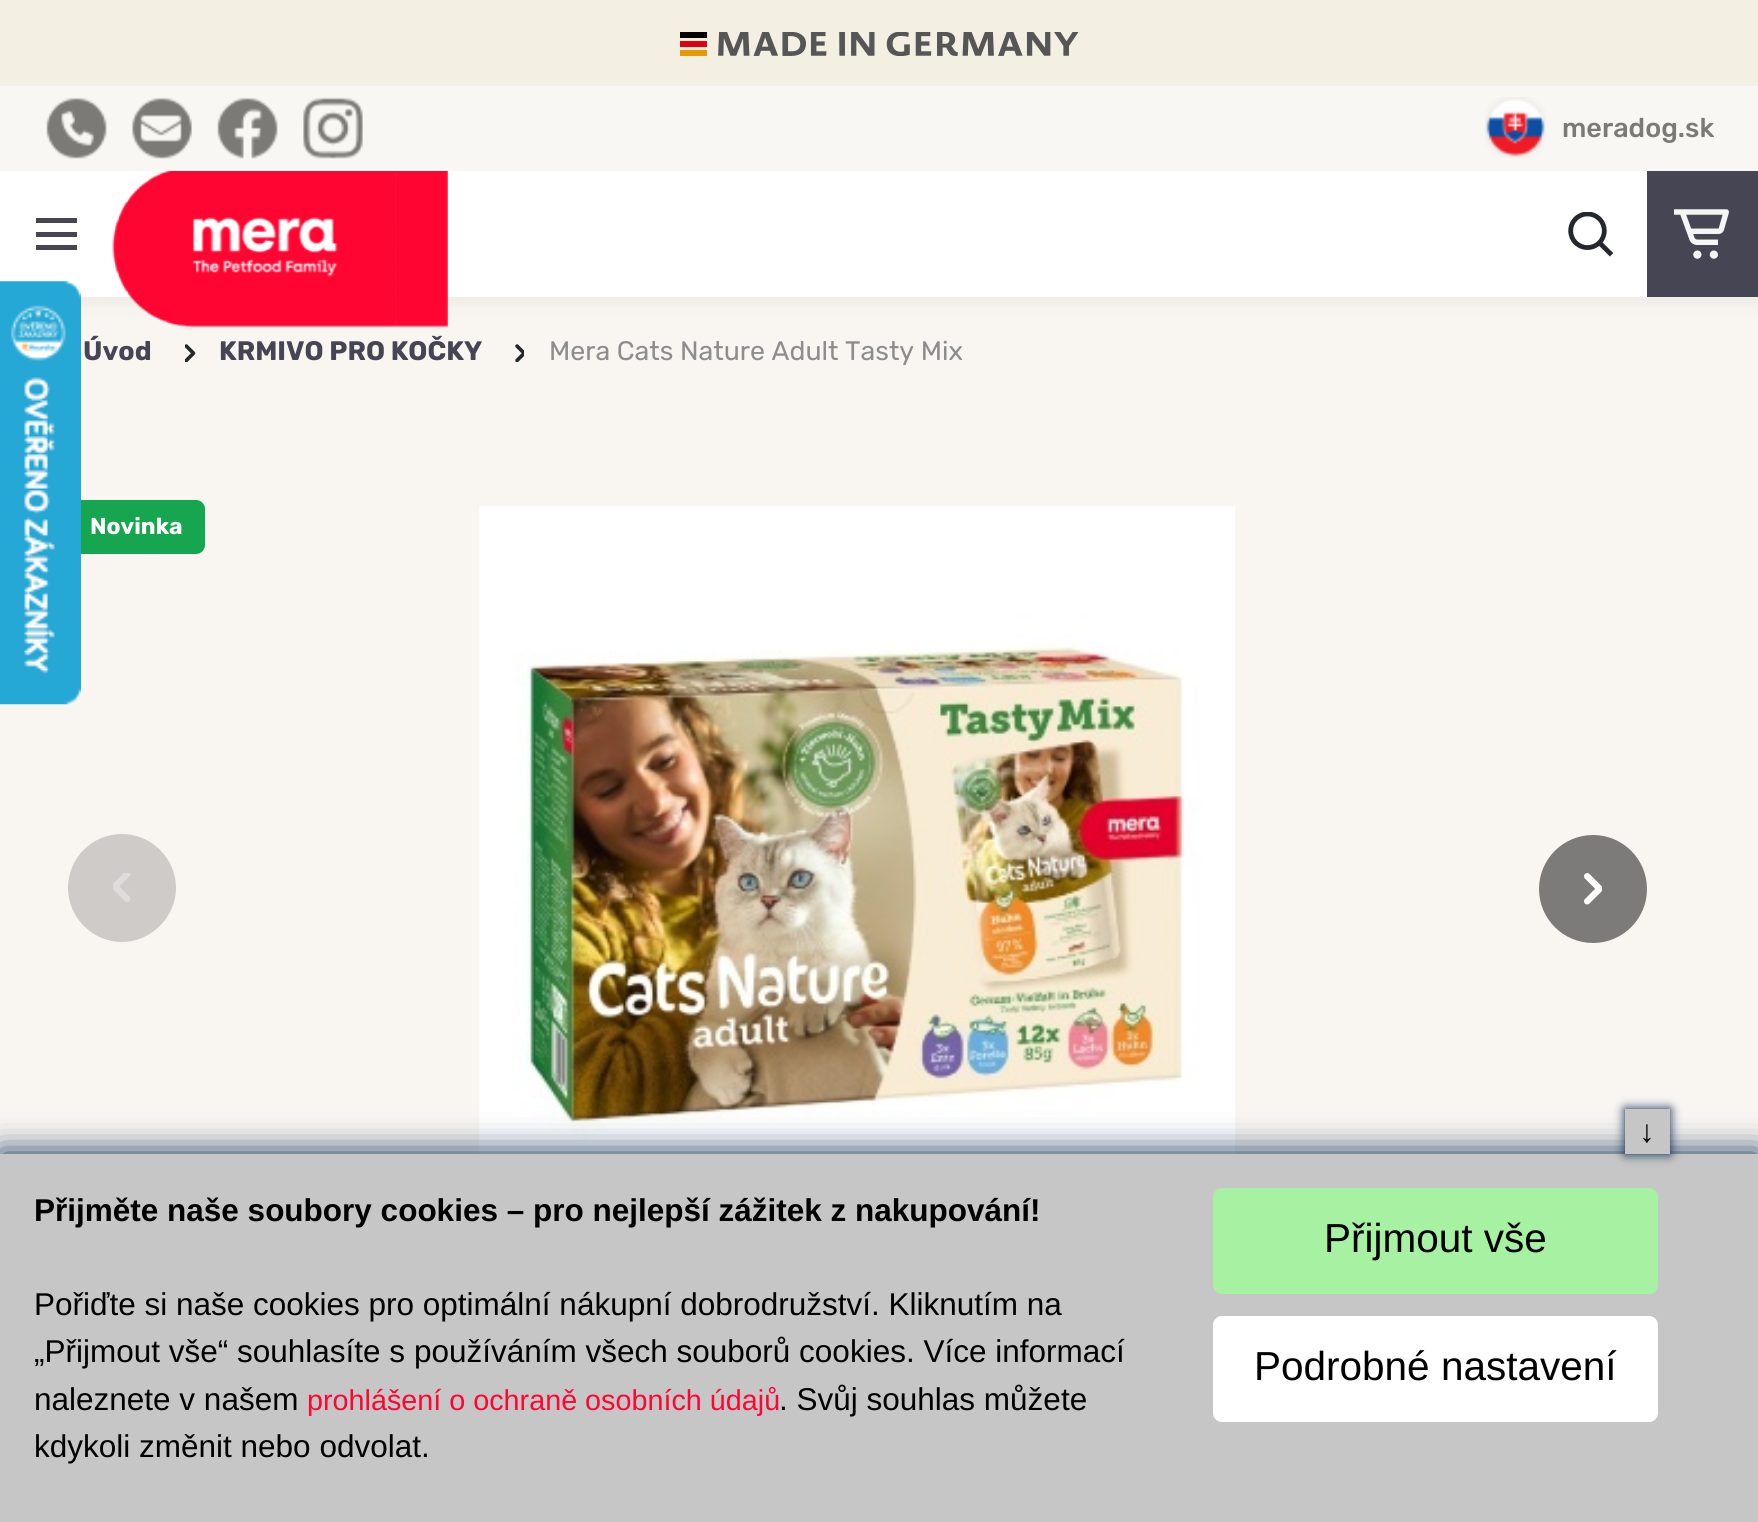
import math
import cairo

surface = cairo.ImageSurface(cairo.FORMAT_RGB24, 1758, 1522)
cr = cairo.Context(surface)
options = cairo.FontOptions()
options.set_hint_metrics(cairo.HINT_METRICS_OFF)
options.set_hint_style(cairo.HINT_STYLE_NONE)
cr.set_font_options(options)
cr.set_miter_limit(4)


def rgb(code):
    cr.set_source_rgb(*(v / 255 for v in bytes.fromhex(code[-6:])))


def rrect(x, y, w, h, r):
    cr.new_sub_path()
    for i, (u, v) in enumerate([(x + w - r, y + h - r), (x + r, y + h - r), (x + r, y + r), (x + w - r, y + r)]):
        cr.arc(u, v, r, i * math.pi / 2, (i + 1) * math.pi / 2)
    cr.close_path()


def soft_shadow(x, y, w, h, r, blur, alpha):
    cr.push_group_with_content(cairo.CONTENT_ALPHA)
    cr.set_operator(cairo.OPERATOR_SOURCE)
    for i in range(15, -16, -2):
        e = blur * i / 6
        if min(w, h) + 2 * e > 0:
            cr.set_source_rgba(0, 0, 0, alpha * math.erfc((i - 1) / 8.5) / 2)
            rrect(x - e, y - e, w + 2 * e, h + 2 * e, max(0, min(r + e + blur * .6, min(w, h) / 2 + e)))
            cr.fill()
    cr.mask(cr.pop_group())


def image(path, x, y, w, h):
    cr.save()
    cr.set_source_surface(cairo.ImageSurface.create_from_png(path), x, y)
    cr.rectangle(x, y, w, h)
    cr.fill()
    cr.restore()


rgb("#f9f6f2")
cr.paint()
rgb("#000000")
soft_shadow(0, 7, 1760, 297, 0, 9, 0.05)
for x, y, w, h, color in [
    (0, 171, 1647, 126, "#ffffff"),
    (36, 232, 41, 5, "#454554"),
    (36, 218, 41, 5, "#454554"),
    (36, 245, 41, 5, "#454554"),
]:
    rgb(color)
    cr.rectangle(x, y, w, h)
    cr.fill()
image("img/1.png", 112, 171, 336, 157)
image("img/2.png", 1568, 212, 45, 45)
cr.rectangle(1647, 171, 111, 126)
cr.fill()
image("img/3.png", 1674, 209, 55, 50)
rgb("#f4efe3")
cr.rectangle(0, 0, 1758, 86)
cr.fill()
image("img/4.png", 680, 32, 399, 24)
rgb("#f9f7f3")
cr.rectangle(0, 86, 1758, 85)
cr.fill()
image("img/5.png", 46, 97, 61, 62)
image("img/6.png", 132, 97, 60, 62)
image("img/7.png", 217, 97, 61, 62)
image("img/8.png", 303, 97, 60, 62)
image("img/9.png", 1485, 97, 61, 61)
rgb("#17a650")
rrect(68, 500, 137, 54, 9)
cr.fill()
image("img/10.png", 0, 281, 81, 424)
image("img/11.png", 185, 344, 11, 18)
image("img/12.png", 515, 344, 9, 18)
rgb("#cecbc8")
cr.new_path()
cr.move_to(122, 942)
cr.curve_to(92, 942, 68, 917, 68, 888)
cr.curve_to(68, 858, 92, 834, 122, 834)
cr.curve_to(151, 834, 176, 858, 176, 888)
cr.curve_to(176, 917, 151, 942, 122, 942)
cr.close_path()
cr.fill()
image("img/13.png", 113, 873, 18, 29)
image("img/14.png", 479, 506, 756, 648)
rgb("#7d7b79")
cr.arc(1593, 889, 54, 0, 2 * math.pi)
cr.fill()
image("img/15.png", 1584, 873, 18, 32)
rgb("#00214b")
soft_shadow(0, 1154, 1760, 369, 0, 17, 1)
rgb("#c6c6c6")
cr.rectangle(0, 1154, 1758, 368)
cr.fill()
rgb("#00214b")
soft_shadow(1625, 1109, 45, 45, 0, 5.5, 1)
rgb("#c6c6c6")
cr.rectangle(1625, 1109, 45, 45)
cr.fill()
rgb("#a6f2a2")
rrect(1213, 1188, 445, 106, 9)
cr.fill()
rgb("#ffffff")
rrect(1213, 1316, 445, 106, 9)
cr.fill()
cr.select_font_face("Rubik Medium")
cr.set_font_size(27)
rgb("#7b7a77")
cr.move_to(1562, 137)
cr.show_text("meradog.sk")
cr.select_font_face("Rubik", cairo.FONT_SLANT_NORMAL, cairo.FONT_WEIGHT_BOLD)
cr.set_font_size(26.75)
rgb("#454554")
cr.move_to(83, 360)
cr.show_text("Úvod")
cr.move_to(219, 360)
cr.show_text("KRMIVO PRO KOČKY")
cr.select_font_face("Rubik")
rgb("#8d8d8d")
cr.move_to(549, 360)
cr.show_text("Mera Cats Nature Adult Tasty Mix")
cr.select_font_face("Rubik", cairo.FONT_SLANT_NORMAL, cairo.FONT_WEIGHT_BOLD)
cr.set_font_size(23)
rgb("#ffffff")
cr.move_to(90, 534)
cr.show_text("Novinka")
cr.select_font_face("Liberation Sans")
cr.set_font_size(31.5)
rgb("#000000")
cr.move_to(1639, 1142)
cr.show_text("↓")
cr.select_font_face("Liberation Sans", cairo.FONT_SLANT_NORMAL, cairo.FONT_WEIGHT_BOLD)
cr.move_to(34, 1221)
cr.show_text("Přijměte naše soubory cookies – pro nejlepší zážitek z nakupování!")
cr.select_font_face("Liberation Sans")
for x, y, s in [
    (34, 1315, "Pořiďte si naše cookies pro optimální nákupní dobrodružství. Kliknutím na"),
    (34, 1362, "„Přijmout vše“ souhlasíte s používáním všech souborů cookies. Více informací"),
    (34, 1410, "naleznete v našem"),
]:
    cr.move_to(x, y)
    cr.show_text(s)
cr.set_font_size(28.75)
rgb("#ff0532")
cr.move_to(307, 1410)
cr.show_text("prohlášení o ochraně osobních údajů")
cr.set_font_size(31.5)
rgb("#000000")
cr.move_to(779, 1410)
cr.show_text(". Svůj souhlas můžete")
cr.move_to(34, 1457)
cr.show_text("kdykoli změnit nebo odvolat.")
cr.set_font_size(40.5)
cr.move_to(1324, 1252)
cr.show_text("Přijmout vše")
cr.move_to(1254, 1380)
cr.show_text("Podrobné nastavení")
surface.write_to_png("page.png")
